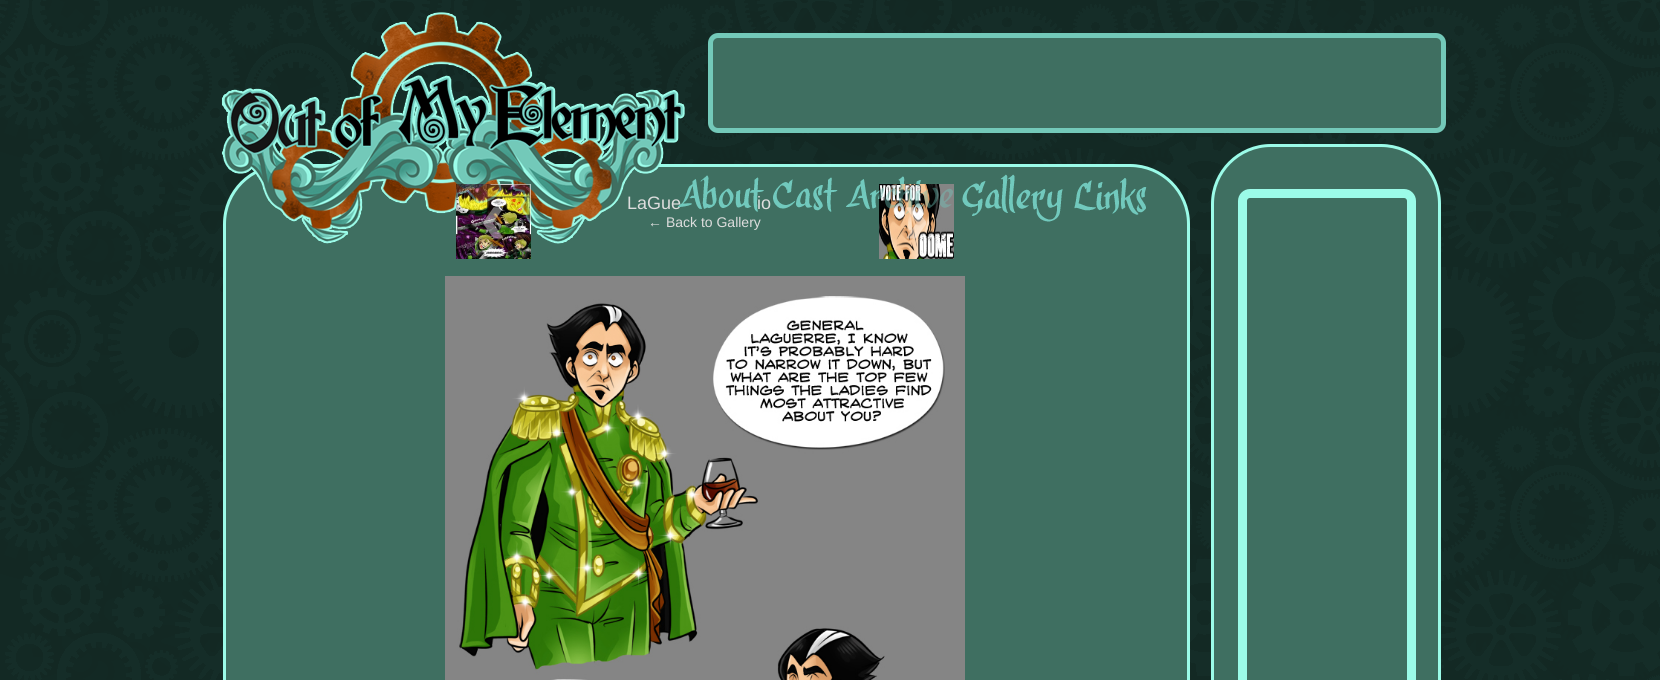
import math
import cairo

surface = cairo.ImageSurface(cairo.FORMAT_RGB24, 1660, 680)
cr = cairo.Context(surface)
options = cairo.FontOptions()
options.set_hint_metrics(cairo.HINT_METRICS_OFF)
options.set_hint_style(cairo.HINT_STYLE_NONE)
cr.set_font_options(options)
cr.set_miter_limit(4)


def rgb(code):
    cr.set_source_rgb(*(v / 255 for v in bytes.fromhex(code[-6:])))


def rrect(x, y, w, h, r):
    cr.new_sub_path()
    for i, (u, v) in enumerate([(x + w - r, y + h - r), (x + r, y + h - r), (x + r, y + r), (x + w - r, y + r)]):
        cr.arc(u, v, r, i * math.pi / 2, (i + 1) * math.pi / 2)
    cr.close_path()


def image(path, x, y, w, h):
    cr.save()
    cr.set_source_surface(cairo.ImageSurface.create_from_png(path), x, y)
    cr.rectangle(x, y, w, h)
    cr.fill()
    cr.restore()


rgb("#ffffff")
cr.paint()
image("img/1.png", 0, 0, 1660, 680)
rgb("#3f6f61")
rrect(710.5, 35.5, 733, 95, 7.5)
cr.fill_preserve()
rgb("#73c9b9")
cr.set_line_width(5)
cr.stroke()
rgb("#3f6f61")
rrect(224.5, 165.5, 964, 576, 58.5)
cr.fill_preserve()
rgb("#9bfbe8")
cr.set_line_width(3)
cr.stroke()
image("img/4.png", 773, 177, 65, 35)
image("img/10.png", 879, 184, 75, 75)
image("img/5.png", 846, 176, 107, 39)
image("img/6.png", 962, 174, 101, 48)
image("img/7.png", 1074, 178, 73, 37)
image("img/8.png", 456, 184, 75, 75)
image("img/12.png", 445, 276, 520, 404)
rgb("#3f6f61")
rrect(1212.5, 145.5, 227, 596, 58.5)
cr.fill_preserve()
rgb("#9bfbe8")
cr.stroke()
rrect(1242.5, 193.5, 169, 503, 7.5)
cr.set_line_width(9)
cr.stroke()
cr.select_font_face("Liberation Sans")
cr.set_font_size(18)
rgb("#dddddd")
cr.move_to(627, 209)
cr.show_text("LaGue")
cr.move_to(757, 209)
cr.show_text("io")
cr.set_font_size(14)
cr.move_to(648, 227)
cr.show_text("← Back to Gallery")
image("img/2.png", 221, 12, 464, 232)
cr.select_font_face("Liberation Sans", cairo.FONT_SLANT_NORMAL, cairo.FONT_WEIGHT_BOLD)
cr.set_font_size(80)
rgb("#ffffff")
cr.move_to(480, 244)
cr.show_text("‹")
image("img/9.png", 456, 184, 75, 55)
image("img/3.png", 678, 175, 86, 37)
cr.move_to(903, 244)
cr.show_text("›")
image("img/11.png", 879, 184, 74, 55)
surface.write_to_png("page.png")
